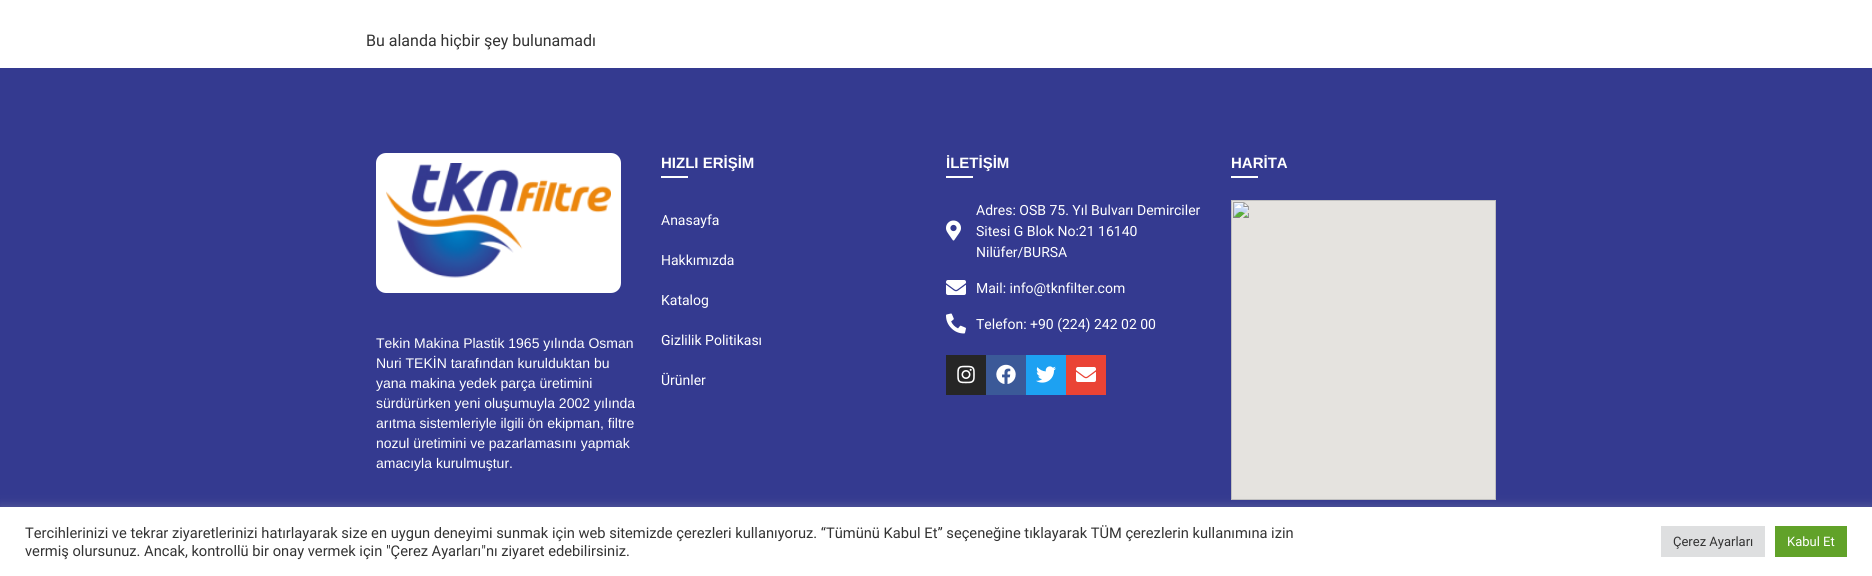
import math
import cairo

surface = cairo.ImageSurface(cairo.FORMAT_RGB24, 1872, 576)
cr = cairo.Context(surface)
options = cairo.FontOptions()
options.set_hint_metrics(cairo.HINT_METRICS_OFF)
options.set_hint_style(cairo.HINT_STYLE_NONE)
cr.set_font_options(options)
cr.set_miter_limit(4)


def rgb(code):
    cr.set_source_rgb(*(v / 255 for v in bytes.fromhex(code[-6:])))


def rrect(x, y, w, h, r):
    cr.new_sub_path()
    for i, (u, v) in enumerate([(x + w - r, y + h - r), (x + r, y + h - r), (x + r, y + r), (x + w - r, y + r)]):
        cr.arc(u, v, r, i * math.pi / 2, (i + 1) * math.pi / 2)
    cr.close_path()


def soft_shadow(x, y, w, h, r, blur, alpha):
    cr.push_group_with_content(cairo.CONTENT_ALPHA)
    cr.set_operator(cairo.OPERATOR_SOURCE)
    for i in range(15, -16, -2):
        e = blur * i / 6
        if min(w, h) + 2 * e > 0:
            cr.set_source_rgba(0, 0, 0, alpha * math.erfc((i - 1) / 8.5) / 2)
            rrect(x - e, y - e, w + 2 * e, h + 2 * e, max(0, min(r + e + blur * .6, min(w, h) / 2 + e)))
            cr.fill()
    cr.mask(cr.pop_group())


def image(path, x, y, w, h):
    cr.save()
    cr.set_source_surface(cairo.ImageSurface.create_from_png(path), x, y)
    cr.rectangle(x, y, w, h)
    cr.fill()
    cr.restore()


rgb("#ffffff")
cr.paint()
for x, y, w, h, color in [
    (0, 68, 1872, 439, "#343a90"),
    (661, 176, 27, 2, "#ffffff"),
    (946, 176, 27, 2, "#ffffff"),
]:
    rgb(color)
    cr.rectangle(x, y, w, h)
    cr.fill()
image("img/1.png", 946, 220, 15, 21)
image("img/2.png", 946, 280, 20, 15)
image("img/3.png", 946, 313, 20, 21)
rgb("#262626")
cr.rectangle(946, 355, 40, 40)
cr.fill()
image("img/4.png", 957, 365, 18, 19)
rgb("#3b5998")
cr.rectangle(986, 355, 40, 40)
cr.fill()
image("img/5.png", 996, 364, 20, 20)
rgb("#1da1f2")
cr.rectangle(1026, 355, 40, 40)
cr.fill()
image("img/6.png", 1036, 366, 20, 17)
rgb("#ea4335")
cr.rectangle(1066, 355, 40, 40)
cr.fill()
image("img/7.png", 1076, 367, 20, 15)
rgb("#ffffff")
cr.rectangle(1231, 176, 27, 2)
cr.fill()
image("img/8.png", 1231, 200, 265, 300)
rrect(376, 153, 245, 140, 10)
cr.fill()
image("img/9.png", 386, 163, 225, 115)
rgb("#acabab")
soft_shadow(0, 506, 1872, 69, 0, 5, 0.3)
for x, y, w, h, color in [
    (0, 507, 1872, 69, "#ffffff"),
    (1661, 526, 104, 31, "#dedfe0"),
    (1775, 526, 72, 31, "#61a229"),
]:
    rgb(color)
    cr.rectangle(x, y, w, h)
    cr.fill()
cr.select_font_face("Roboto")
cr.set_font_size(16)
rgb("#333333")
cr.move_to(366, 46)
cr.show_text("Bu alanda hiçbir şey bulunamadı")
cr.select_font_face("Liberation Sans", cairo.FONT_SLANT_NORMAL, cairo.FONT_WEIGHT_BOLD)
cr.set_font_size(15)
rgb("#ffffff")
cr.move_to(661, 168)
cr.show_text("HIZLI ERİŞİM")
cr.select_font_face("Roboto")
cr.set_font_size(14)
for x, y, s in [
    (661, 225, "Anasayfa"),
    (661, 265, "Hakkımızda"),
    (661, 305, "Katalog"),
    (661, 345, "Gizlilik Politikası"),
    (661, 385, "Ürünler"),
]:
    cr.move_to(x, y)
    cr.show_text(s)
cr.select_font_face("Liberation Sans", cairo.FONT_SLANT_NORMAL, cairo.FONT_WEIGHT_BOLD)
cr.set_font_size(15)
cr.move_to(946, 168)
cr.show_text("İLETİŞİM")
cr.select_font_face("Roboto")
cr.set_font_size(14)
for x, y, s in [
    (976, 215, "Adres: OSB 75. Yıl Bulvarı Demirciler"),
    (976, 236, "Sitesi G Blok No:21 16140"),
    (976, 257, "Nilüfer/BURSA"),
    (976, 293, "Mail: info@tknfilter.com"),
    (976, 329, "Telefon: +90 (224) 242 02 00"),
]:
    cr.move_to(x, y)
    cr.show_text(s)
cr.select_font_face("Liberation Sans", cairo.FONT_SLANT_NORMAL, cairo.FONT_WEIGHT_BOLD)
cr.set_font_size(15)
cr.move_to(1231, 168)
cr.show_text("HARİTA")
cr.select_font_face("Liberation Sans")
cr.set_font_size(14)
for x, y, s in [
    (376, 348, "Tekin Makina Plastik 1965 yılında Osman"),
    (376, 368, "Nuri TEKİN tarafından kurulduktan bu"),
    (376, 388, "yana makina yedek parça üretimini"),
    (376, 408, "sürdürürken yeni oluşumuyla 2002 yılında"),
    (376, 428, "arıtma sistemleriyle ilgili ön ekipman, filtre"),
    (376, 448, "nozul üretimini ve pazarlamasını yapmak"),
    (376, 468, "amacıyla kurulmuştur."),
]:
    cr.move_to(x, y)
    cr.show_text(s)
cr.select_font_face("Roboto")
cr.set_font_size(14.67)
rgb("#333333")
cr.move_to(25, 538)
cr.show_text("Tercihlerinizi ve tekrar ziyaretlerinizi hatırlayarak size en uygun deneyimi sunmak için web sitemizde çerezleri kullanıyoruz. “Tümünü Kabul Et” seçeneğine tıklayarak TÜM çerezlerin kullanımına izin")
cr.move_to(25, 556)
cr.show_text("vermiş olursunuz. Ancak, kontrollü bir onay vermek için \"Çerez Ayarları\"nı ziyaret edebilirsiniz.")
cr.set_font_size(13)
cr.move_to(1673, 546)
cr.show_text("Çerez Ayarları")
rgb("#ffffff")
cr.move_to(1787, 546)
cr.show_text("Kabul Et")
surface.write_to_png("page.png")
